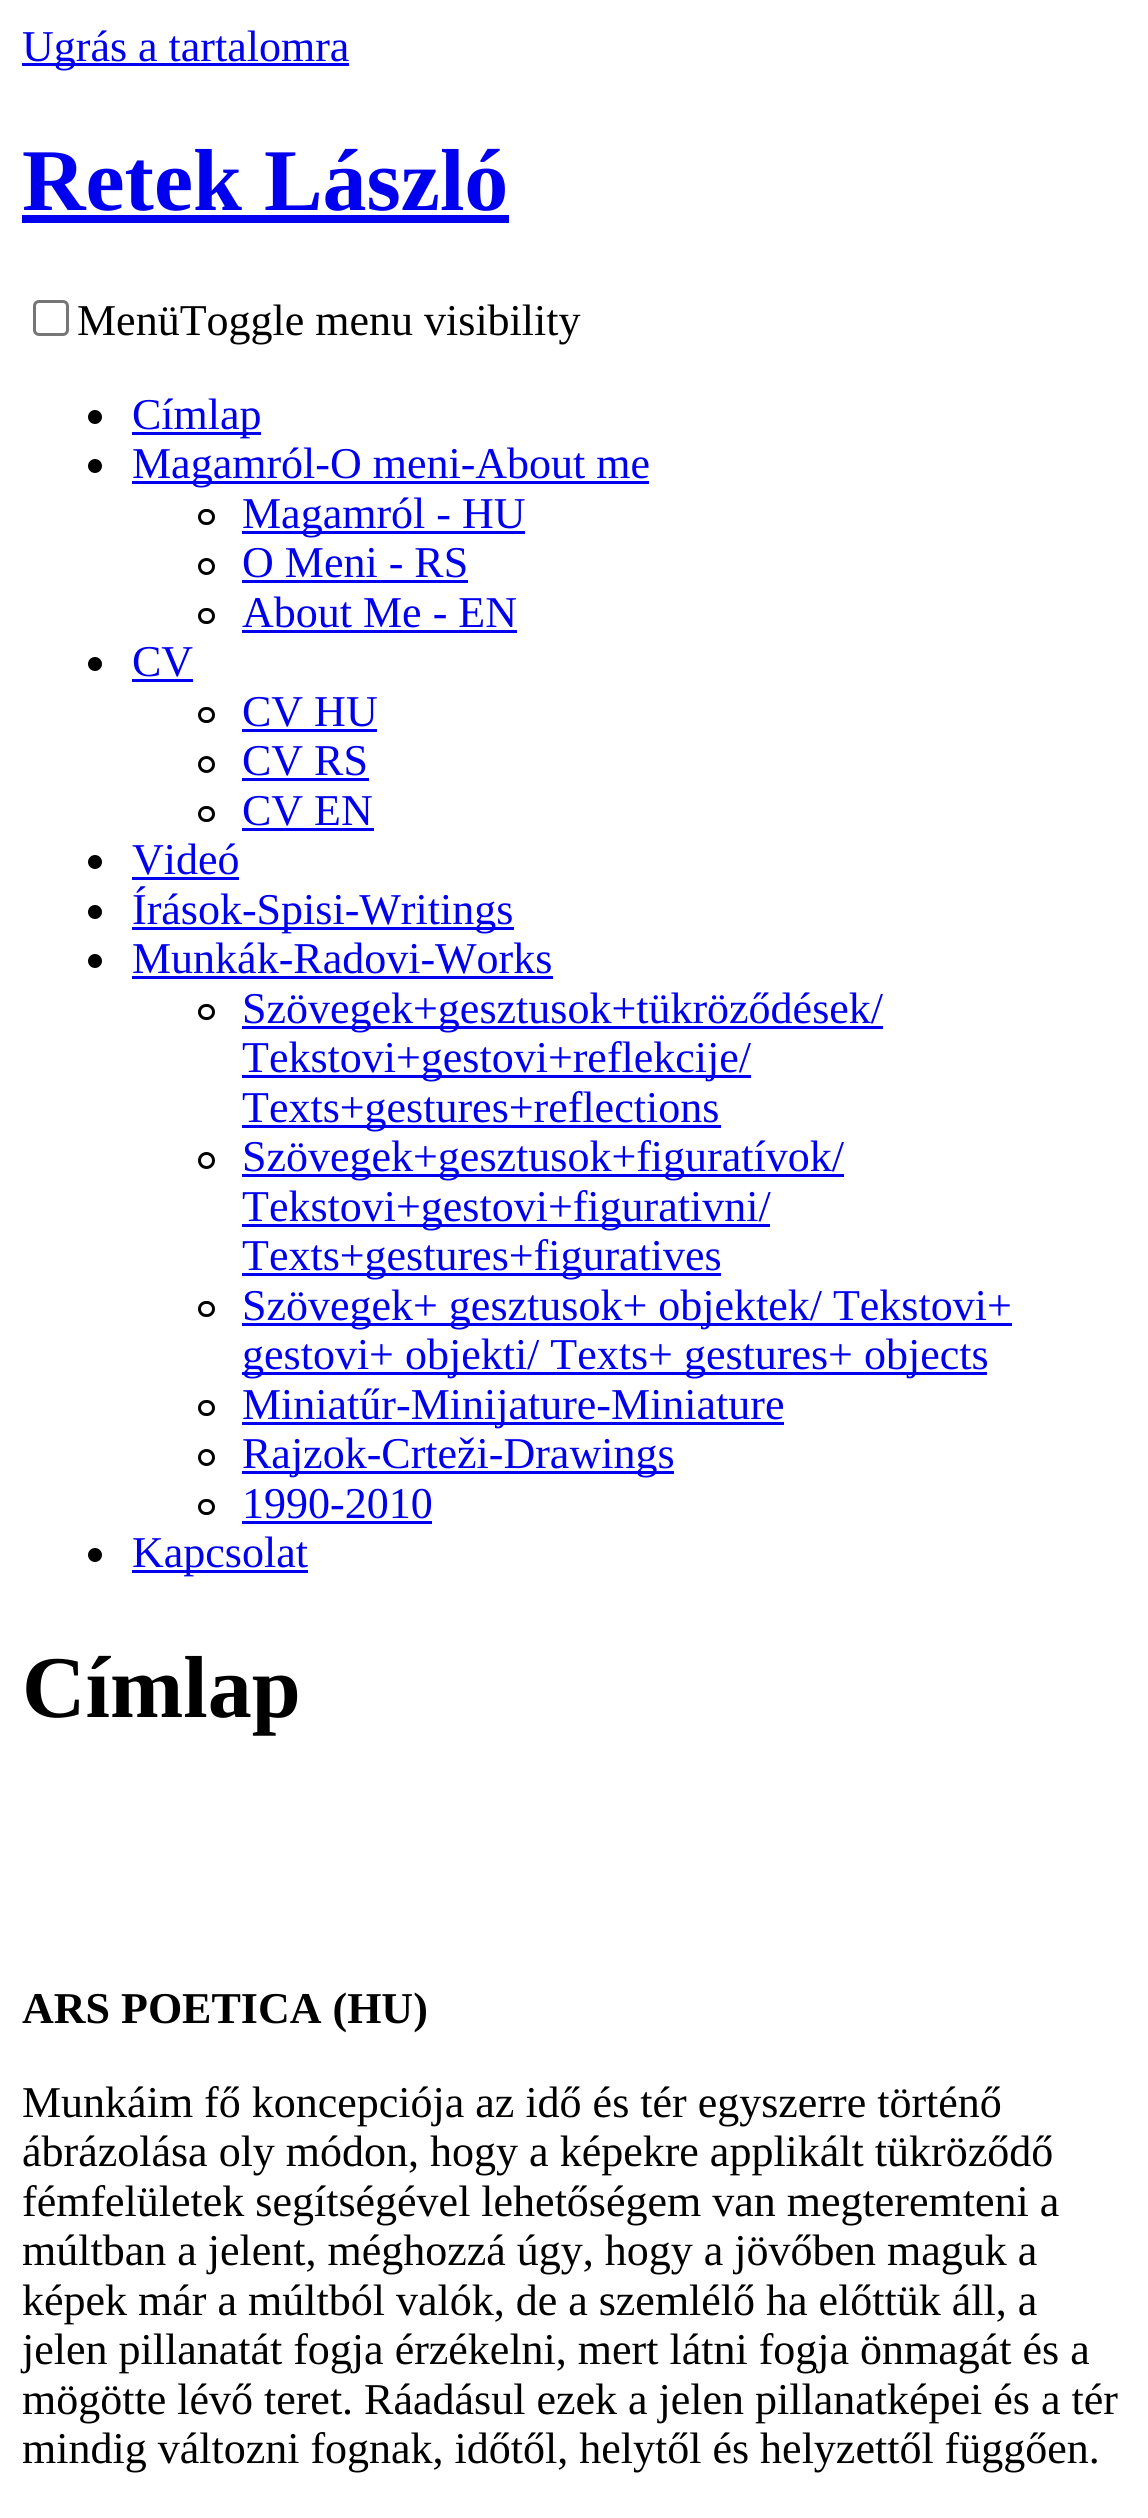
import math
import cairo

surface = cairo.ImageSurface(cairo.FORMAT_RGB24, 1148, 2518)
cr = cairo.Context(surface)
options = cairo.FontOptions()
options.set_hint_metrics(cairo.HINT_METRICS_OFF)
options.set_hint_style(cairo.HINT_STYLE_NONE)
cr.set_font_options(options)
cr.set_miter_limit(4)


def rgb(code):
    cr.set_source_rgb(*(v / 255 for v in bytes.fromhex(code[-6:])))


def rrect(x, y, w, h, r):
    cr.new_sub_path()
    for i, (u, v) in enumerate([(x + w - r, y + h - r), (x + r, y + h - r), (x + r, y + r), (x + w - r, y + r)]):
        cr.arc(u, v, r, i * math.pi / 2, (i + 1) * math.pi / 2)
    cr.close_path()


rgb("#ffffff")
cr.paint()
rgb("#0000ee")
cr.rectangle(22, 63, 327, 3)
cr.fill()
cr.rectangle(22, 215, 487, 8)
cr.fill()
rrect(34.5, 301.5, 33, 33, 4.5)
rgb("#767676")
cr.set_line_width(3)
cr.stroke()
rgb("#000000")
cr.arc(95, 417, 7, 0, 2 * math.pi)
cr.fill()
rgb("#0000ee")
cr.rectangle(132, 432, 129, 3)
cr.fill()
rgb("#000000")
cr.arc(95, 466, 7, 0, 2 * math.pi)
cr.fill()
rgb("#0000ee")
cr.rectangle(132, 481, 517, 3)
cr.fill()
rrect(199.5, 510.5, 14, 13, 6.5)
rgb("#000000")
cr.stroke()
rgb("#0000ee")
cr.rectangle(242, 531, 283, 3)
cr.fill()
cr.arc(206.5, 566.5, 7, 0, 2 * math.pi)
rgb("#000000")
cr.stroke()
rgb("#0000ee")
cr.rectangle(242, 580, 226, 3)
cr.fill()
rrect(199.5, 609.5, 14, 13, 6.5)
rgb("#000000")
cr.stroke()
rgb("#0000ee")
cr.rectangle(242, 630, 275, 3)
cr.fill()
rgb("#000000")
cr.arc(95, 664, 7, 0, 2 * math.pi)
cr.fill()
rgb("#0000ee")
cr.rectangle(132, 679, 61, 3)
cr.fill()
rrect(199.5, 708.5, 14, 13, 6.5)
rgb("#000000")
cr.stroke()
rgb("#0000ee")
cr.rectangle(242, 729, 135, 3)
cr.fill()
cr.arc(206.5, 764.5, 7, 0, 2 * math.pi)
rgb("#000000")
cr.stroke()
rgb("#0000ee")
cr.rectangle(242, 778, 127, 3)
cr.fill()
rrect(199.5, 807.5, 14, 13, 6.5)
rgb("#000000")
cr.stroke()
rgb("#0000ee")
cr.rectangle(242, 828, 132, 3)
cr.fill()
rgb("#000000")
cr.arc(95, 862, 7, 0, 2 * math.pi)
cr.fill()
rgb("#0000ee")
cr.rectangle(132, 877, 107, 3)
cr.fill()
rgb("#000000")
cr.arc(95, 912, 7, 0, 2 * math.pi)
cr.fill()
rgb("#0000ee")
cr.rectangle(132, 927, 382, 3)
cr.fill()
rgb("#000000")
cr.arc(95, 961, 7, 0, 2 * math.pi)
cr.fill()
rgb("#0000ee")
cr.rectangle(132, 976, 421, 3)
cr.fill()
rrect(199.5, 1005.5, 14, 13, 6.5)
rgb("#000000")
cr.stroke()
for x, y, w, h, color in [
    (242, 1026, 641, 3, "#0000ee"),
    (242, 1075, 509, 3, "#0000ee"),
    (242, 1125, 479, 3, "#0000ee"),
]:
    rgb(color)
    cr.rectangle(x, y, w, h)
    cr.fill()
cr.arc(206.5, 1160.5, 7, 0, 2 * math.pi)
rgb("#000000")
cr.stroke()
for x, y, w, h, color in [
    (242, 1174, 602, 3, "#0000ee"),
    (242, 1224, 528, 3, "#0000ee"),
    (242, 1273, 479, 3, "#0000ee"),
]:
    rgb(color)
    cr.rectangle(x, y, w, h)
    cr.fill()
rrect(199.5, 1302.5, 14, 13, 6.5)
rgb("#000000")
cr.stroke()
rgb("#0000ee")
cr.rectangle(242, 1323, 770, 3)
cr.fill()
cr.rectangle(242, 1372, 745, 3)
cr.fill()
rrect(199.5, 1401.5, 14, 13, 6.5)
rgb("#000000")
cr.stroke()
rgb("#0000ee")
cr.rectangle(242, 1422, 542, 3)
cr.fill()
cr.arc(206.5, 1457.5, 7, 0, 2 * math.pi)
rgb("#000000")
cr.stroke()
rgb("#0000ee")
cr.rectangle(242, 1471, 432, 3)
cr.fill()
rrect(199.5, 1500.5, 14, 13, 6.5)
rgb("#000000")
cr.stroke()
rgb("#0000ee")
cr.rectangle(242, 1521, 190, 3)
cr.fill()
rgb("#000000")
cr.arc(95, 1555, 7, 0, 2 * math.pi)
cr.fill()
rgb("#0000ee")
cr.rectangle(132, 1570, 176, 3)
cr.fill()
cr.select_font_face("Liberation Serif")
cr.set_font_size(44)
cr.move_to(22, 61)
cr.show_text("Ugrás a tartalomra")
cr.select_font_face("Liberation Serif", cairo.FONT_SLANT_NORMAL, cairo.FONT_WEIGHT_BOLD)
cr.set_font_size(88)
cr.move_to(22, 210)
cr.show_text("Retek László")
cr.select_font_face("Liberation Serif")
cr.set_font_size(44)
rgb("#000000")
cr.move_to(77, 335)
cr.show_text("MenüToggle menu visibility")
rgb("#0000ee")
for x, y, s in [
    (132, 429, "Címlap"),
    (132, 478, "Magamról-O meni-About me"),
    (242, 528, "Magamról - HU"),
    (242, 577, "O Meni - RS"),
    (242, 627, "About Me - EN"),
    (132, 676, "CV"),
    (242, 726, "CV HU"),
    (242, 775, "CV RS"),
    (242, 825, "CV EN"),
    (132, 874, "Videó"),
    (132, 924, "Írások-Spisi-Writings"),
    (132, 973, "Munkák-Radovi-Works"),
    (242, 1023, "Szövegek+gesztusok+tükröződések/"),
    (242, 1072, "Tekstovi+gestovi+reflekcije/"),
    (242, 1122, "Texts+gestures+reflections"),
    (242, 1171, "Szövegek+gesztusok+figuratívok/"),
    (242, 1221, "Tekstovi+gestovi+figurativni/"),
    (242, 1270, "Texts+gestures+figuratives"),
    (242, 1320, "Szövegek+ gesztusok+ objektek/ Tekstovi+"),
    (242, 1369, "gestovi+ objekti/ Texts+ gestures+ objects"),
    (242, 1419, "Miniatűr-Minijature-Miniature"),
    (242, 1468, "Rajzok-Crteži-Drawings"),
    (242, 1518, "1990-2010"),
    (132, 1567, "Kapcsolat"),
]:
    cr.move_to(x, y)
    cr.show_text(s)
cr.select_font_face("Liberation Serif", cairo.FONT_SLANT_NORMAL, cairo.FONT_WEIGHT_BOLD)
cr.set_font_size(88)
rgb("#000000")
cr.move_to(22, 1717)
cr.show_text("Címlap")
cr.set_font_size(44)
cr.move_to(22, 2023)
cr.show_text("ARS POETICA (HU)")
cr.select_font_face("Liberation Serif")
for x, y, s in [
    (22, 2117, "Munkáim fő koncepciója az idő és tér egyszerre történő"),
    (22, 2166, "ábrázolása oly módon, hogy a képekre applikált tükröződő"),
    (22, 2216, "fémfelületek segítségével lehetőségem van megteremteni a"),
    (22, 2265, "múltban a jelent, méghozzá úgy, hogy a jövőben maguk a"),
    (22, 2315, "képek már a múltból valók, de a szemlélő ha előttük áll, a"),
    (22, 2364, "jelen pillanatát fogja érzékelni, mert látni fogja önmagát és a"),
    (22, 2414, "mögötte lévő teret. Ráadásul ezek a jelen pillanatképei és a tér"),
    (22, 2463, "mindig változni fognak, időtől, helytől és helyzettől függően."),
]:
    cr.move_to(x, y)
    cr.show_text(s)
surface.write_to_png("page.png")
